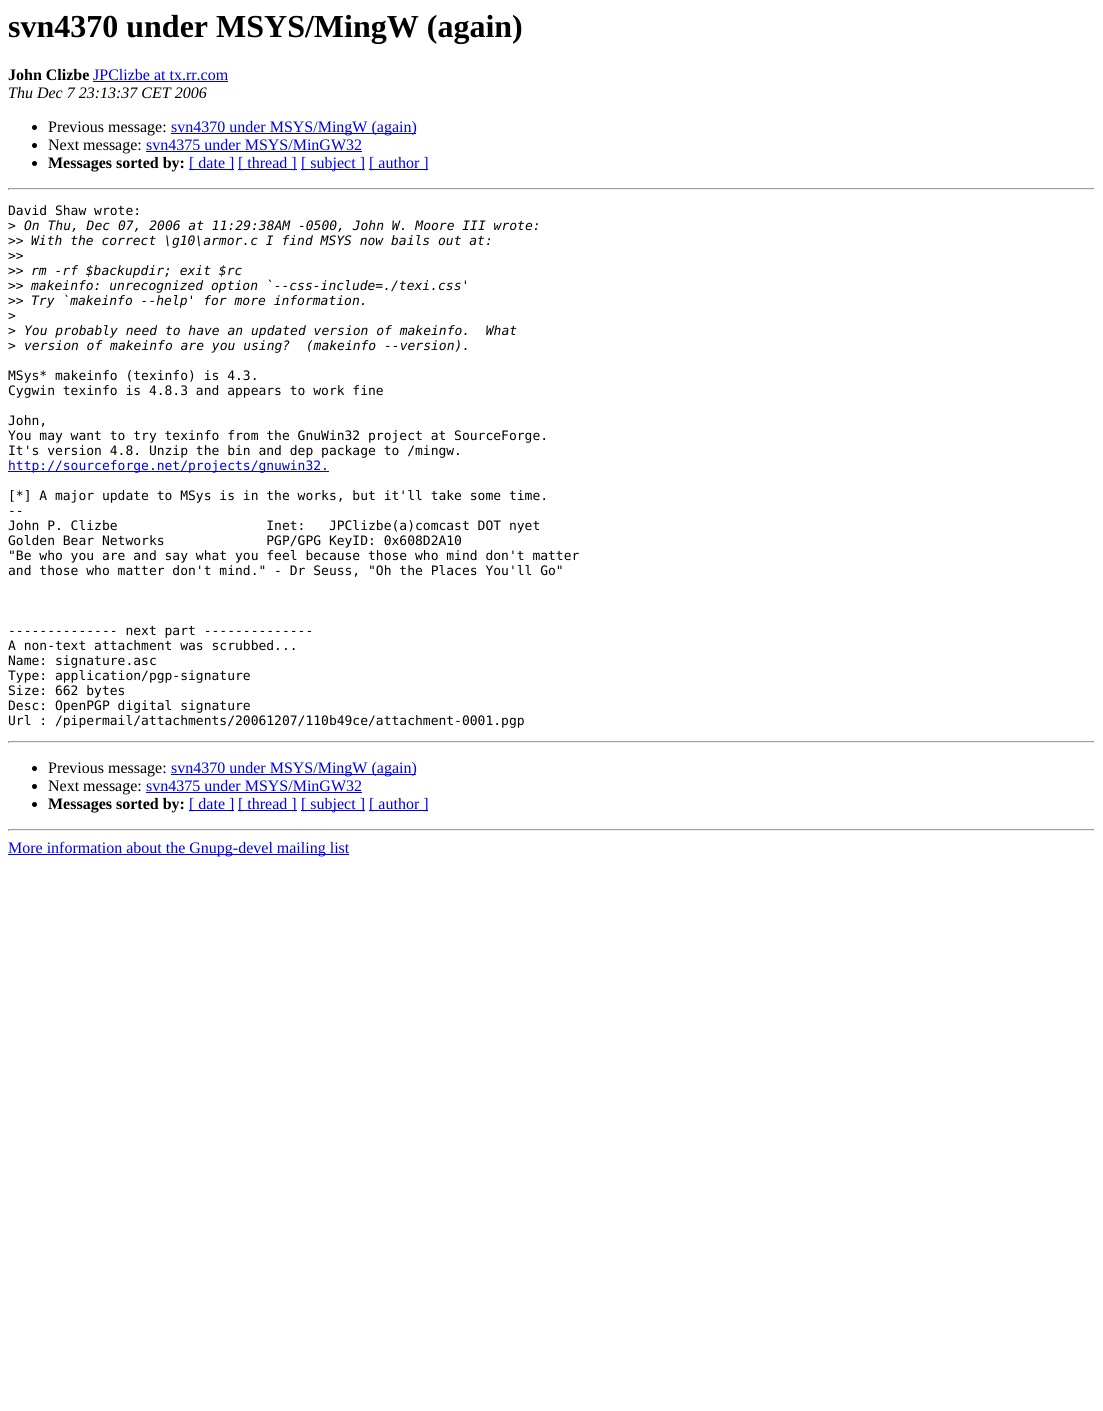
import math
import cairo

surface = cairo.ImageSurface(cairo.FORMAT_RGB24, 1103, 1411)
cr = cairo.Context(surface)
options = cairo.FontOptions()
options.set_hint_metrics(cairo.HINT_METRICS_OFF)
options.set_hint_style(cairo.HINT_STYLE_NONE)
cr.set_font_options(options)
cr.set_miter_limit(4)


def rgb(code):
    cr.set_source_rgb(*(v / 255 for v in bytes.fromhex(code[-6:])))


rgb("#ffffff")
cr.paint()
rgb("#0000ee")
cr.rectangle(93, 81, 135, 1)
cr.fill()
rgb("#000000")
cr.arc(34.5, 127.5, 2.5, 0, 2 * math.pi)
cr.fill()
rgb("#0000ee")
cr.rectangle(171, 133, 245, 1)
cr.fill()
rgb("#000000")
cr.arc(34.5, 145.5, 2.5, 0, 2 * math.pi)
cr.fill()
rgb("#0000ee")
cr.rectangle(146, 151, 216, 1)
cr.fill()
rgb("#000000")
cr.arc(34.5, 163.5, 2.5, 0, 2 * math.pi)
cr.fill()
for x, y, w, h, color in [
    (189, 169, 45, 1, "#0000ee"),
    (238, 169, 59, 1, "#0000ee"),
    (301, 169, 64, 1, "#0000ee"),
    (369, 169, 59, 1, "#0000ee"),
    (8, 188, 1087, 1, "#9f9f9f"),
    (1094, 188, 1, 2, "#eeeeee"),
    (8, 189, 1087, 1, "#eeeeee"),
    (8, 188, 1, 2, "#9f9f9f"),
    (8, 471, 321, 1, "#0000ee"),
    (8, 741, 1087, 1, "#9f9f9f"),
    (1094, 741, 1, 2, "#eeeeee"),
    (8, 742, 1087, 1, "#eeeeee"),
    (8, 741, 1, 2, "#9f9f9f"),
]:
    rgb(color)
    cr.rectangle(x, y, w, h)
    cr.fill()
rgb("#000000")
cr.arc(34.5, 768.5, 2.5, 0, 2 * math.pi)
cr.fill()
rgb("#0000ee")
cr.rectangle(171, 774, 245, 1)
cr.fill()
rgb("#000000")
cr.arc(34.5, 786.5, 2.5, 0, 2 * math.pi)
cr.fill()
rgb("#0000ee")
cr.rectangle(146, 792, 216, 1)
cr.fill()
rgb("#000000")
cr.arc(34.5, 804.5, 2.5, 0, 2 * math.pi)
cr.fill()
for x, y, w, h, color in [
    (189, 810, 45, 1, "#0000ee"),
    (238, 810, 59, 1, "#0000ee"),
    (301, 810, 64, 1, "#0000ee"),
    (369, 810, 59, 1, "#0000ee"),
    (8, 829, 1087, 1, "#9f9f9f"),
    (1094, 829, 1, 2, "#eeeeee"),
    (8, 830, 1087, 1, "#eeeeee"),
    (8, 829, 1, 2, "#9f9f9f"),
    (8, 854, 341, 1, "#0000ee"),
]:
    rgb(color)
    cr.rectangle(x, y, w, h)
    cr.fill()
cr.select_font_face("Liberation Serif", cairo.FONT_SLANT_NORMAL, cairo.FONT_WEIGHT_BOLD)
cr.set_font_size(32)
rgb("#000000")
cr.move_to(8, 37)
cr.show_text("svn4370 under MSYS/MingW (again)")
cr.set_font_size(16)
cr.move_to(8, 80)
cr.show_text("John Clizbe")
cr.select_font_face("Liberation Serif")
rgb("#0000ee")
cr.move_to(93, 80)
cr.show_text("JPClizbe at tx.rr.com")
cr.select_font_face("Liberation Serif", cairo.FONT_SLANT_ITALIC)
rgb("#000000")
cr.move_to(8, 98)
cr.show_text("Thu Dec 7 23:13:37 CET 2006")
cr.select_font_face("Liberation Serif")
cr.move_to(48, 132)
cr.show_text("Previous message:")
rgb("#0000ee")
cr.move_to(171, 132)
cr.show_text("svn4370 under MSYS/MingW (again)")
rgb("#000000")
cr.move_to(48, 150)
cr.show_text("Next message:")
rgb("#0000ee")
cr.move_to(146, 150)
cr.show_text("svn4375 under MSYS/MinGW32")
cr.select_font_face("Liberation Serif", cairo.FONT_SLANT_NORMAL, cairo.FONT_WEIGHT_BOLD)
rgb("#000000")
cr.move_to(48, 168)
cr.show_text("Messages sorted by:")
cr.select_font_face("Liberation Serif")
rgb("#0000ee")
for x, y, s in [
    (189, 168, "[ date ]"),
    (238, 168, "[ thread ]"),
    (301, 168, "[ subject ]"),
    (369, 168, "[ author ]"),
]:
    cr.move_to(x, y)
    cr.show_text(s)
cr.select_font_face("DejaVu Sans Mono")
cr.set_font_size(13)
rgb("#000000")
cr.move_to(8, 215)
cr.show_text("David Shaw wrote:")
cr.move_to(8, 230)
cr.show_text(">")
cr.select_font_face("DejaVu Sans Mono", cairo.FONT_SLANT_ITALIC)
cr.move_to(24, 230)
cr.show_text("On Thu, Dec 07, 2006 at 11:29:38AM -0500, John W. Moore III wrote:")
cr.select_font_face("DejaVu Sans Mono")
cr.move_to(8, 245)
cr.show_text(">>")
cr.select_font_face("DejaVu Sans Mono", cairo.FONT_SLANT_ITALIC)
cr.move_to(31, 245)
cr.show_text("With the correct \\g10\\armor.c I find MSYS now bails out at:")
cr.select_font_face("DejaVu Sans Mono")
cr.move_to(8, 260)
cr.show_text(">>")
cr.move_to(8, 275)
cr.show_text(">>")
cr.select_font_face("DejaVu Sans Mono", cairo.FONT_SLANT_ITALIC)
cr.move_to(31, 275)
cr.show_text("rm -rf $backupdir; exit $rc")
cr.select_font_face("DejaVu Sans Mono")
cr.move_to(8, 290)
cr.show_text(">>")
cr.select_font_face("DejaVu Sans Mono", cairo.FONT_SLANT_ITALIC)
cr.move_to(31, 290)
cr.show_text("makeinfo: unrecognized option `--css-include=./texi.css'")
cr.select_font_face("DejaVu Sans Mono")
cr.move_to(8, 305)
cr.show_text(">>")
cr.select_font_face("DejaVu Sans Mono", cairo.FONT_SLANT_ITALIC)
cr.move_to(31, 305)
cr.show_text("Try `makeinfo --help' for more information.")
cr.select_font_face("DejaVu Sans Mono")
cr.move_to(8, 320)
cr.show_text(">")
cr.move_to(8, 335)
cr.show_text(">")
cr.select_font_face("DejaVu Sans Mono", cairo.FONT_SLANT_ITALIC)
cr.move_to(24, 335)
cr.show_text("You probably need to have an updated version of makeinfo.  What")
cr.select_font_face("DejaVu Sans Mono")
cr.move_to(8, 350)
cr.show_text(">")
cr.select_font_face("DejaVu Sans Mono", cairo.FONT_SLANT_ITALIC)
cr.move_to(24, 350)
cr.show_text("version of makeinfo are you using?  (makeinfo --version).")
cr.select_font_face("DejaVu Sans Mono")
for x, y, s in [
    (8, 380, "MSys* makeinfo (texinfo) is 4.3."),
    (8, 395, "Cygwin texinfo is 4.8.3 and appears to work fine"),
    (8, 425, "John,"),
    (8, 440, "You may want to try texinfo from the GnuWin32 project at SourceForge."),
    (8, 455, "It's version 4.8. Unzip the bin and dep package to /mingw."),
]:
    cr.move_to(x, y)
    cr.show_text(s)
rgb("#0000ee")
cr.move_to(8, 470)
cr.show_text("http://sourceforge.net/projects/gnuwin32.")
rgb("#000000")
for x, y, s in [
    (8, 500, "[*] A major update to MSys is in the works, but it'll take some time."),
    (8, 515, "--"),
    (8, 530, "John P. Clizbe                   Inet:   JPClizbe(a)comcast DOT nyet"),
    (8, 545, "Golden Bear Networks             PGP/GPG KeyID: 0x608D2A10"),
    (8, 560, "\"Be who you are and say what you feel because those who mind don't matter"),
    (8, 575, "and those who matter don't mind.\" - Dr Seuss, \"Oh the Places You'll Go\""),
    (8, 635, "-------------- next part --------------"),
    (8, 650, "A non-text attachment was scrubbed..."),
    (8, 665, "Name: signature.asc"),
    (8, 680, "Type: application/pgp-signature"),
    (8, 695, "Size: 662 bytes"),
    (8, 710, "Desc: OpenPGP digital signature"),
    (8, 725, "Url : /pipermail/attachments/20061207/110b49ce/attachment-0001.pgp"),
]:
    cr.move_to(x, y)
    cr.show_text(s)
cr.select_font_face("Liberation Serif")
cr.set_font_size(16)
cr.move_to(48, 773)
cr.show_text("Previous message:")
rgb("#0000ee")
cr.move_to(171, 773)
cr.show_text("svn4370 under MSYS/MingW (again)")
rgb("#000000")
cr.move_to(48, 791)
cr.show_text("Next message:")
rgb("#0000ee")
cr.move_to(146, 791)
cr.show_text("svn4375 under MSYS/MinGW32")
cr.select_font_face("Liberation Serif", cairo.FONT_SLANT_NORMAL, cairo.FONT_WEIGHT_BOLD)
rgb("#000000")
cr.move_to(48, 809)
cr.show_text("Messages sorted by:")
cr.select_font_face("Liberation Serif")
rgb("#0000ee")
for x, y, s in [
    (189, 809, "[ date ]"),
    (238, 809, "[ thread ]"),
    (301, 809, "[ subject ]"),
    (369, 809, "[ author ]"),
    (8, 853, "More information about the Gnupg-devel mailing list"),
]:
    cr.move_to(x, y)
    cr.show_text(s)
surface.write_to_png("page.png")
